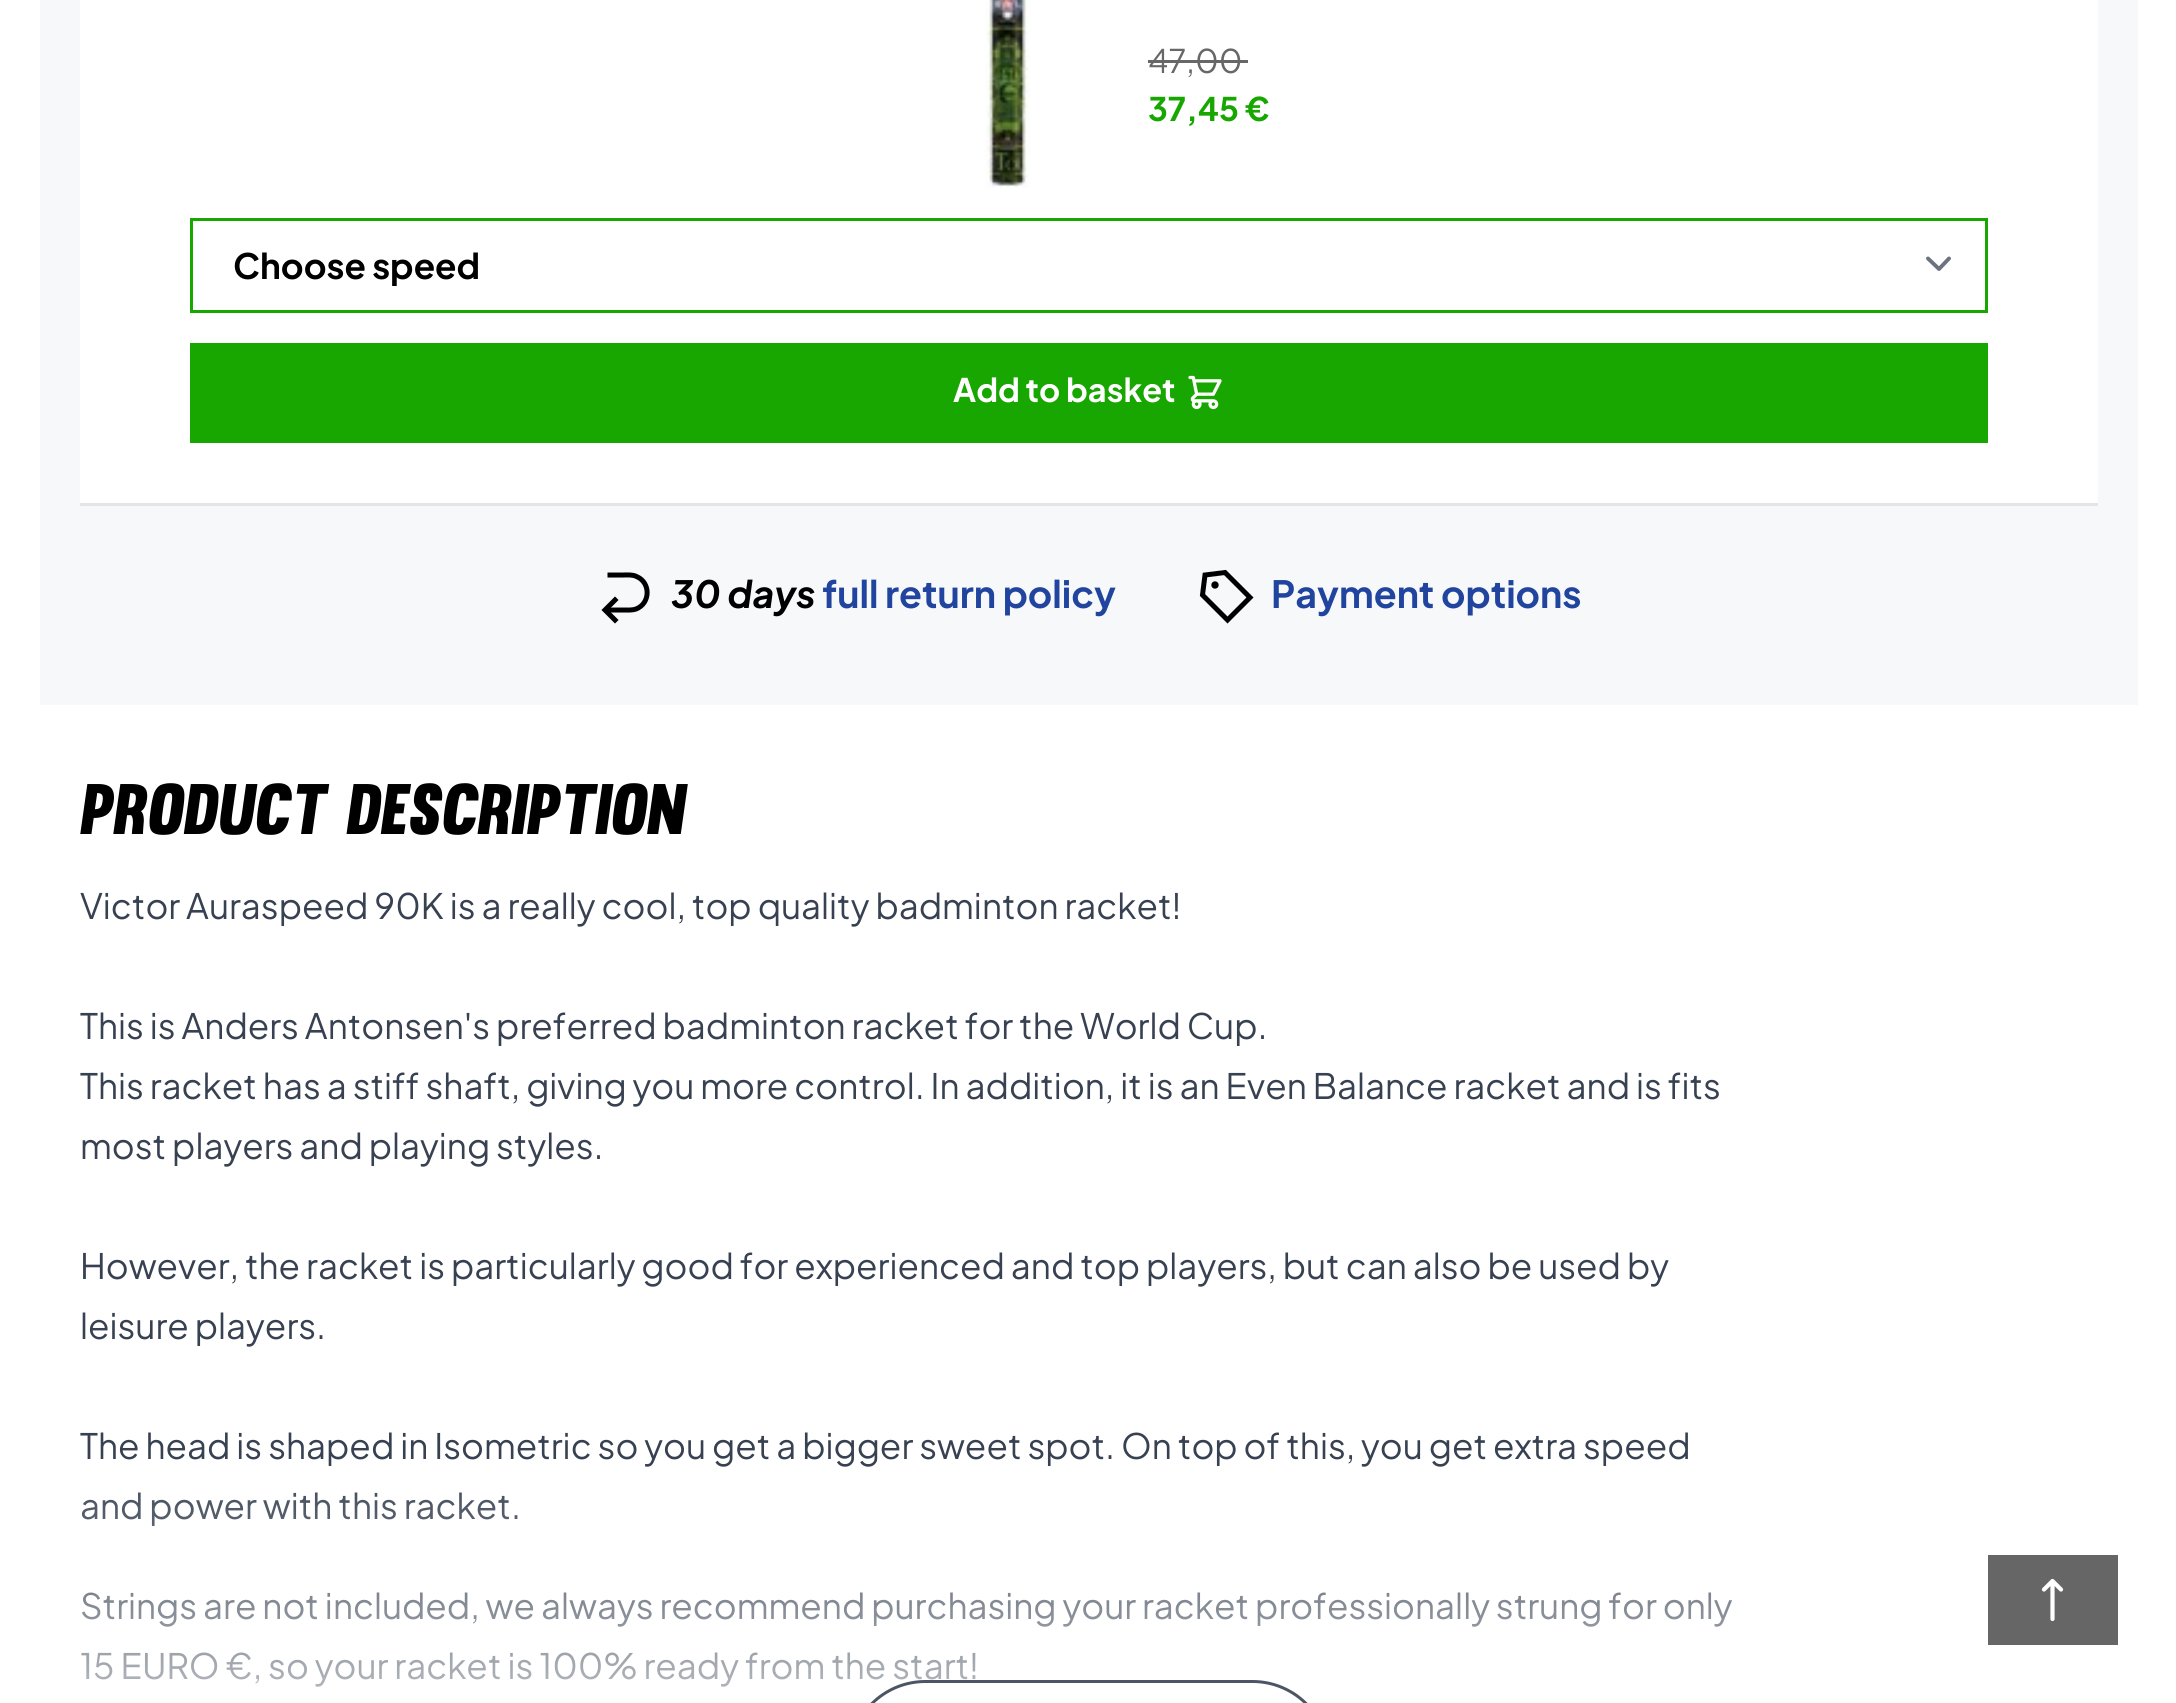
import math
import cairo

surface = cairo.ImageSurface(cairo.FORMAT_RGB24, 2176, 1703)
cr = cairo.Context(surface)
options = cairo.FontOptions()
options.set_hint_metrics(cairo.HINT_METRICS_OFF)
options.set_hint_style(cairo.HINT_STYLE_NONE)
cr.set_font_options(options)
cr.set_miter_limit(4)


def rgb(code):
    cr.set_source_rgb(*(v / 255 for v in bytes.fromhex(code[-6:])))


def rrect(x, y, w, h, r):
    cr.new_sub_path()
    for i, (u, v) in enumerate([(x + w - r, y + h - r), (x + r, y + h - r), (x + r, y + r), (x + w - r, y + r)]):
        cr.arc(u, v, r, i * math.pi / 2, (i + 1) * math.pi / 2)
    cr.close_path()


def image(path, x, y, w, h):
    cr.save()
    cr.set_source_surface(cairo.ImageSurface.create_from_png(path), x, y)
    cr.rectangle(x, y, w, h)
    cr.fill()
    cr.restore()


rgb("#ffffff")
cr.paint()
for x, y, w, h, color in [
    (40, 0, 2098, 705, "#f6f8fa"),
    (80, 0, 2018, 503, "#ffffff"),
    (80, 503, 2018, 3, "#e5e5e5"),
]:
    rgb(color)
    cr.rectangle(x, y, w, h)
    cr.fill()
image("img/1.png", 985, 0, 45, 188)
rgb("#676767")
cr.rectangle(1148, 60, 100, 3)
cr.fill()
cr.new_path()
cr.move_to(1928, 258.5)
cr.line_to(1939, 269)
cr.line_to(1949, 258.5)
rgb("#6b7280")
cr.set_line_width(3.9)
cr.set_line_cap(cairo.LINE_CAP_ROUND)
cr.set_line_join(cairo.LINE_JOIN_ROUND)
cr.stroke()
cr.rectangle(191.5, 219.5, 1795, 92)
rgb("#17a700")
cr.set_line_width(3)
cr.set_line_cap(cairo.LINE_CAP_BUTT)
cr.set_line_join(cairo.LINE_JOIN_MITER)
cr.stroke()
cr.rectangle(190, 343, 1798, 100)
cr.fill()
image("img/2.png", 1188, 375, 34, 35)
cr.new_path()
cr.move_to(610, 575)
cr.line_to(623.5, 575)
cr.curve_to(628, 575, 632.5, 574.5, 636.5, 576.5)
cr.curve_to(651, 582.5, 650.5, 603.5, 636, 609)
cr.curve_to(631.5, 610.5, 627, 610, 622.5, 610)
cr.line_to(607.5, 610)
rgb("#000000")
cr.set_line_width(5)
cr.set_line_cap(cairo.LINE_CAP_SQUARE)
cr.set_line_join(cairo.LINE_JOIN_ROUND)
cr.stroke()
cr.new_path()
cr.move_to(615, 620)
cr.line_to(605, 610)
cr.line_to(615, 600)
cr.set_line_join(cairo.LINE_JOIN_MITER)
cr.stroke()
cr.new_path()
cr.move_to(1250, 597.5)
cr.line_to(1227.5, 620)
cr.line_to(1202.5, 595)
cr.line_to(1205, 575)
cr.line_to(1225, 572.5)
cr.close_path()
cr.set_line_cap(cairo.LINE_CAP_ROUND)
cr.stroke()
cr.new_path()
cr.move_to(1215, 585)
cr.line_to(1215, 585)
cr.set_line_join(cairo.LINE_JOIN_ROUND)
cr.stroke()
cr.arc(1215, 585, 1.2, 0, 2 * math.pi)
cr.set_line_cap(cairo.LINE_CAP_BUTT)
cr.set_line_join(cairo.LINE_JOIN_MITER)
cr.stroke()
rgb("#666666")
cr.rectangle(1988, 1555, 130, 90)
cr.fill()
cr.new_path()
cr.move_to(2044, 1589.5)
cr.line_to(2052.5, 1581)
cr.move_to(2052.5, 1581)
cr.line_to(2061, 1589.5)
cr.move_to(2052.5, 1581)
cr.line_to(2052.5, 1619)
rgb("#ffffff")
cr.set_line_width(4.2)
cr.set_line_cap(cairo.LINE_CAP_ROUND)
cr.set_line_join(cairo.LINE_JOIN_ROUND)
cr.stroke()
cr.select_font_face("Plus Jakarta Sans")
cr.set_font_size(32.5)
rgb("#676767")
cr.move_to(1148, 73)
cr.show_text("47,00")
cr.select_font_face("Plus Jakarta Sans", cairo.FONT_SLANT_NORMAL, cairo.FONT_WEIGHT_BOLD)
rgb("#17a700")
cr.move_to(1148, 121)
cr.show_text("37,45 €")
cr.set_font_size(35)
rgb("#000000")
cr.move_to(233, 279)
cr.show_text("Choose speed")
cr.set_font_size(32.5)
rgb("#ffffff")
cr.move_to(953, 402)
cr.show_text("Add to basket")
cr.select_font_face("Plus Jakarta Sans", cairo.FONT_SLANT_ITALIC, cairo.FONT_WEIGHT_BOLD)
cr.set_font_size(37.5)
rgb("#000000")
cr.move_to(671, 608)
cr.show_text("30 days")
cr.select_font_face("Plus Jakarta Sans", cairo.FONT_SLANT_NORMAL, cairo.FONT_WEIGHT_BOLD)
rgb("#21459f")
cr.move_to(822, 608)
cr.show_text("full return policy")
cr.move_to(1271, 608)
cr.show_text("Payment options")
cr.select_font_face("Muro", cairo.FONT_SLANT_ITALIC)
cr.set_font_size(70)
rgb("#000000")
cr.move_to(80, 834)
cr.show_text("PRODUCT DESCRIPTION")
cr.select_font_face("Plus Jakarta Sans")
cr.set_font_size(35)
rgb("#374151")
for x, y, s in [
    (80, 919, "Victor Auraspeed 90K is a really cool, top quality badminton racket!"),
    (80, 1039, "This is Anders Antonsen's preferred badminton racket for the World Cup."),
    (80, 1099, "This racket has a stiff shaft, giving you more control. In addition, it is an Even Balance racket and is fits"),
    (80, 1159, "most players and playing styles."),
    (80, 1279, "However, the racket is particularly good for experienced and top players, but can also be used by"),
    (80, 1339, "leisure players."),
    (80, 1459, "The head is shaped in Isometric so you get a bigger sweet spot. On top of this, you get extra speed"),
    (80, 1519, "and power with this racket."),
    (80, 1619, "Strings are not included, we always recommend purchasing your racket professionally strung for only"),
    (80, 1679, "15 EURO €, so your racket is 100% ready from the start!"),
]:
    cr.move_to(x, y)
    cr.show_text(s)
gradient = cairo.LinearGradient(1089, 1460, 1089, 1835)
gradient.add_color_stop_rgba(0, 1, 1, 1, 0)
gradient.add_color_stop_rgba(1, 1, 1, 1, 1)
cr.set_source(gradient)
cr.rectangle(81, 1492, 1651, 195)
cr.fill()
rrect(849.5, 1681.5, 479, 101, 76)
rgb("#4b5563")
cr.set_line_width(3)
cr.set_line_cap(cairo.LINE_CAP_BUTT)
cr.set_line_join(cairo.LINE_JOIN_MITER)
cr.stroke()
surface.write_to_png("page.png")
